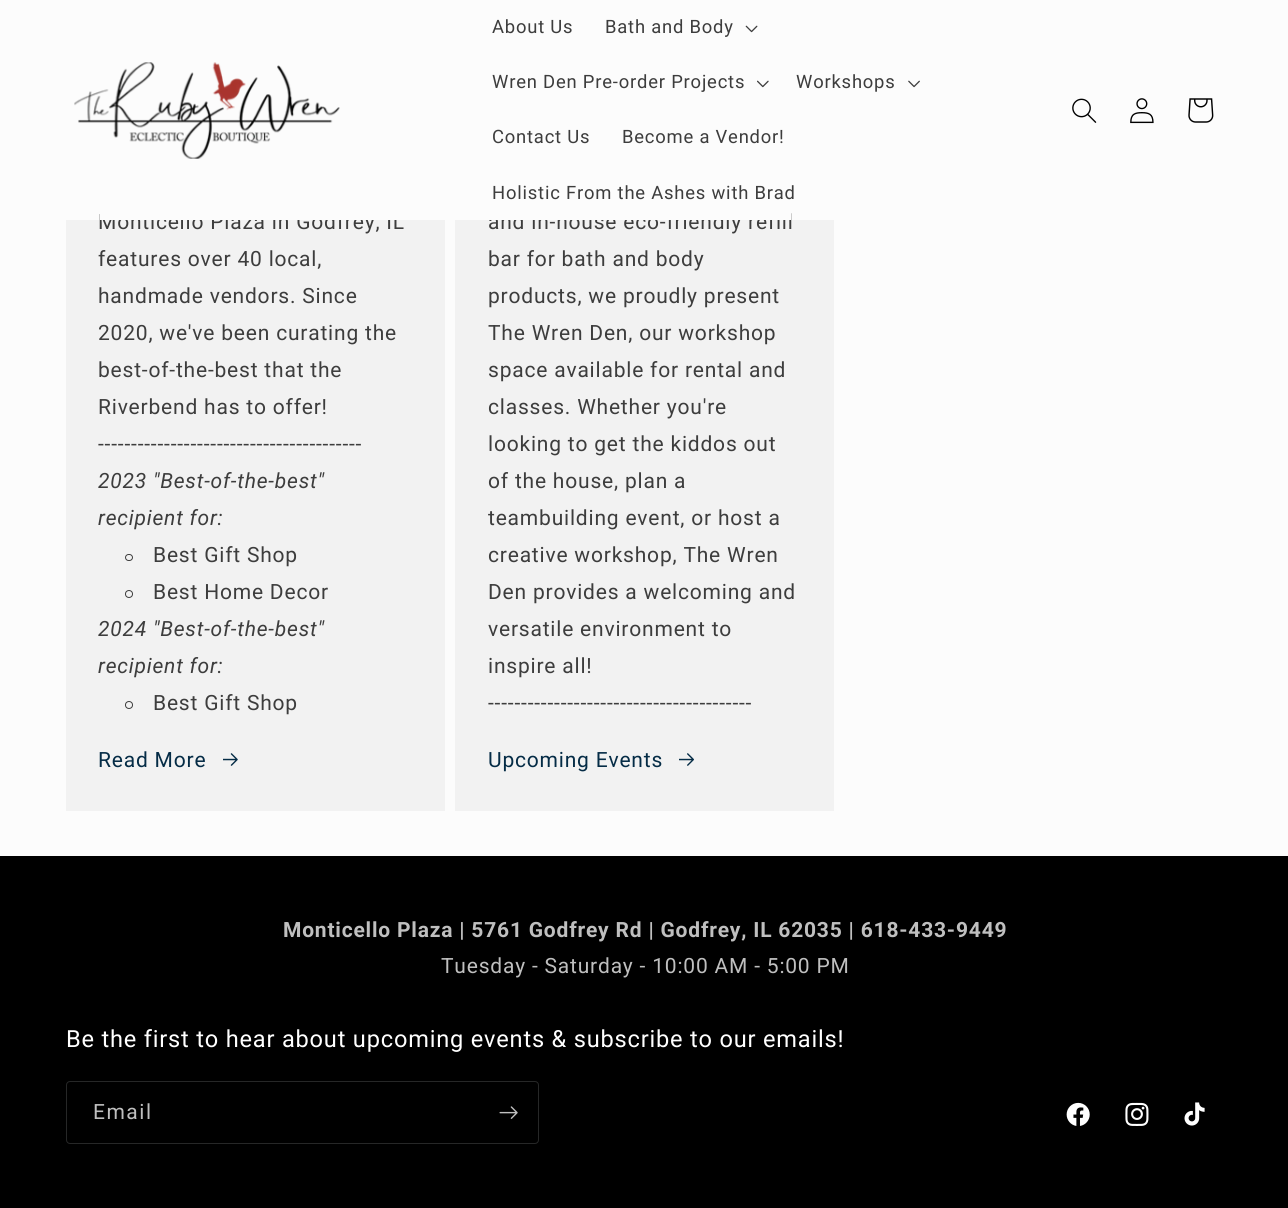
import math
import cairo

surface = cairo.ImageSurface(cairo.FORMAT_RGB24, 1288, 1208)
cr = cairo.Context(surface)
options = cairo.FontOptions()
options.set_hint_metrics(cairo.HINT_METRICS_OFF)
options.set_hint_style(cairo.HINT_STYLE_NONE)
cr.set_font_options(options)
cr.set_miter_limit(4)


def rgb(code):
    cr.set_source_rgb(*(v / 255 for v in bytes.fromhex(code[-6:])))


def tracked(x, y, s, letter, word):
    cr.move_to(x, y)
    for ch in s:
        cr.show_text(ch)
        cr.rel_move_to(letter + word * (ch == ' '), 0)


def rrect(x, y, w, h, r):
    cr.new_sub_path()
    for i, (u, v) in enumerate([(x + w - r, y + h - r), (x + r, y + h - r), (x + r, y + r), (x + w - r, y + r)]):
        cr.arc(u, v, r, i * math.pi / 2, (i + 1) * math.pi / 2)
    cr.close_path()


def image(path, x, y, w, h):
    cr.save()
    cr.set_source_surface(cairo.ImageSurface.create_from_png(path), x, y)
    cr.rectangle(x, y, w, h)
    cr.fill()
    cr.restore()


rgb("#fcfcfc")
cr.paint()
image("img/1.png", 74, 62, 266, 97)
image("img/2.png", 745, 25, 13, 8)
image("img/3.png", 757, 80, 12, 8)
image("img/4.png", 908, 80, 12, 8)
image("img/5.png", 1072, 98, 25, 25)
image("img/6.png", 1130, 98, 24, 26)
image("img/7.png", 1188, 98, 26, 25)
rgb("#f2f2f2")
cr.rectangle(66, 220, 379, 591)
cr.fill()
rrect(125.5, 554.5, 7, 6, 3)
rgb("#3d3d3d")
cr.set_line_width(1)
cr.stroke()
cr.arc(129, 594, 3.5, 0, 2 * math.pi)
cr.stroke()
cr.arc(129, 705, 3.5, 0, 2 * math.pi)
cr.stroke()
image("img/8.png", 223, 753, 15, 13)
rgb("#f2f2f2")
cr.rectangle(455, 220, 379, 591)
cr.fill()
image("img/9.png", 679, 753, 15, 13)
rgb("#000000")
cr.rectangle(0, 856, 1288, 352)
cr.fill()
rrect(66.5, 1081.5, 472, 62, 3.5)
rgb("#262727")
cr.stroke()
image("img/10.png", 499, 1106, 19, 13)
image("img/11.png", 1066, 1102, 24, 24)
image("img/12.png", 1125, 1102, 24, 24)
image("img/13.png", 1184, 1102, 21, 24)
cr.select_font_face("Roboto")
cr.set_font_size(18.4)
rgb("#3d3d3d")
for x, y, s in [
    (492, 33, "About Us"),
    (605, 33, "Bath and Body"),
    (492, 88, "Wren Den Pre-order Projects"),
    (796, 88, "Workshops"),
    (492, 143, "Contact Us"),
    (622, 143, "Become a Vendor!"),
    (492, 199, "Holistic From the Ashes with Brad"),
]:
    tracked(x, y, s, 0.8, 0)
cr.set_font_size(21)
for x, y, s in [
    (98, 229, "Monticello Plaza in Godfrey, IL"),
    (98, 266, "features over 40 local,"),
    (98, 303, "handmade vendors. Since"),
    (98, 340, "2020, we've been curating the"),
    (98, 377, "best-of-the-best that the"),
    (98, 414, "Riverbend has to offer!"),
    (98, 451, "----------------------------------------"),
]:
    tracked(x, y, s, 0.8, 0)
cr.select_font_face("Roboto", cairo.FONT_SLANT_ITALIC)
tracked(98, 488, "2023 \"Best-of-the-best\"", 0.8, 0)
tracked(98, 525, "recipient for:", 0.8, 0)
cr.select_font_face("Roboto")
tracked(153, 562, "Best Gift Shop", 0.8, 0)
tracked(153, 599, "Best Home Decor", 0.8, 0)
cr.select_font_face("Roboto", cairo.FONT_SLANT_ITALIC)
tracked(98, 636, "2024 \"Best-of-the-best\"", 0.8, 0)
tracked(98, 673, "recipient for:", 0.8, 0)
cr.select_font_face("Roboto")
tracked(153, 710, "Best Gift Shop", 0.8, 0)
rgb("#052c46")
tracked(98, 767, "Read More", 0.8, 0)
rgb("#3d3d3d")
tracked(488, 229, "and in-house eco-friendly refill", 0.8, 0)
rgb("#fcfcfc")
cr.rectangle(100, 213, 691, 7)
cr.fill()
rgb("#3d3d3d")
for x, y, s in [
    (488, 266, "bar for bath and body"),
    (488, 303, "products, we proudly present"),
    (488, 340, "The Wren Den, our workshop"),
    (488, 377, "space available for rental and"),
    (488, 414, "classes. Whether you're"),
    (488, 451, "looking to get the kiddos out"),
    (488, 488, "of the house, plan a"),
    (488, 525, "teambuilding event, or host a"),
    (488, 562, "creative workshop, The Wren"),
    (488, 599, "Den provides a welcoming and"),
    (488, 636, "versatile environment to"),
    (488, 673, "inspire all!"),
    (488, 710, "----------------------------------------"),
]:
    tracked(x, y, s, 0.8, 0)
rgb("#052c46")
tracked(488, 767, "Upcoming Events", 0.8, 0)
cr.select_font_face("Roboto", cairo.FONT_SLANT_NORMAL, cairo.FONT_WEIGHT_BOLD)
rgb("#bfbfbf")
tracked(283, 937, "Monticello Plaza | 5761 Godfrey Rd | Godfrey, IL 62035 | 618-433-9449", 0.8, 0)
cr.select_font_face("Roboto")
tracked(441, 973, "Tuesday - Saturday - 10:00 AM - 5:00 PM", 0.8, 0)
cr.set_font_size(23.6)
rgb("#ffffff")
tracked(66, 1047, "Be the first to hear about upcoming events & subscribe to our emails!", 0.8, 0)
cr.set_font_size(21)
rgb("#bfbfbf")
tracked(93, 1119, "Email", 1.5, 0)
surface.write_to_png("page.png")
